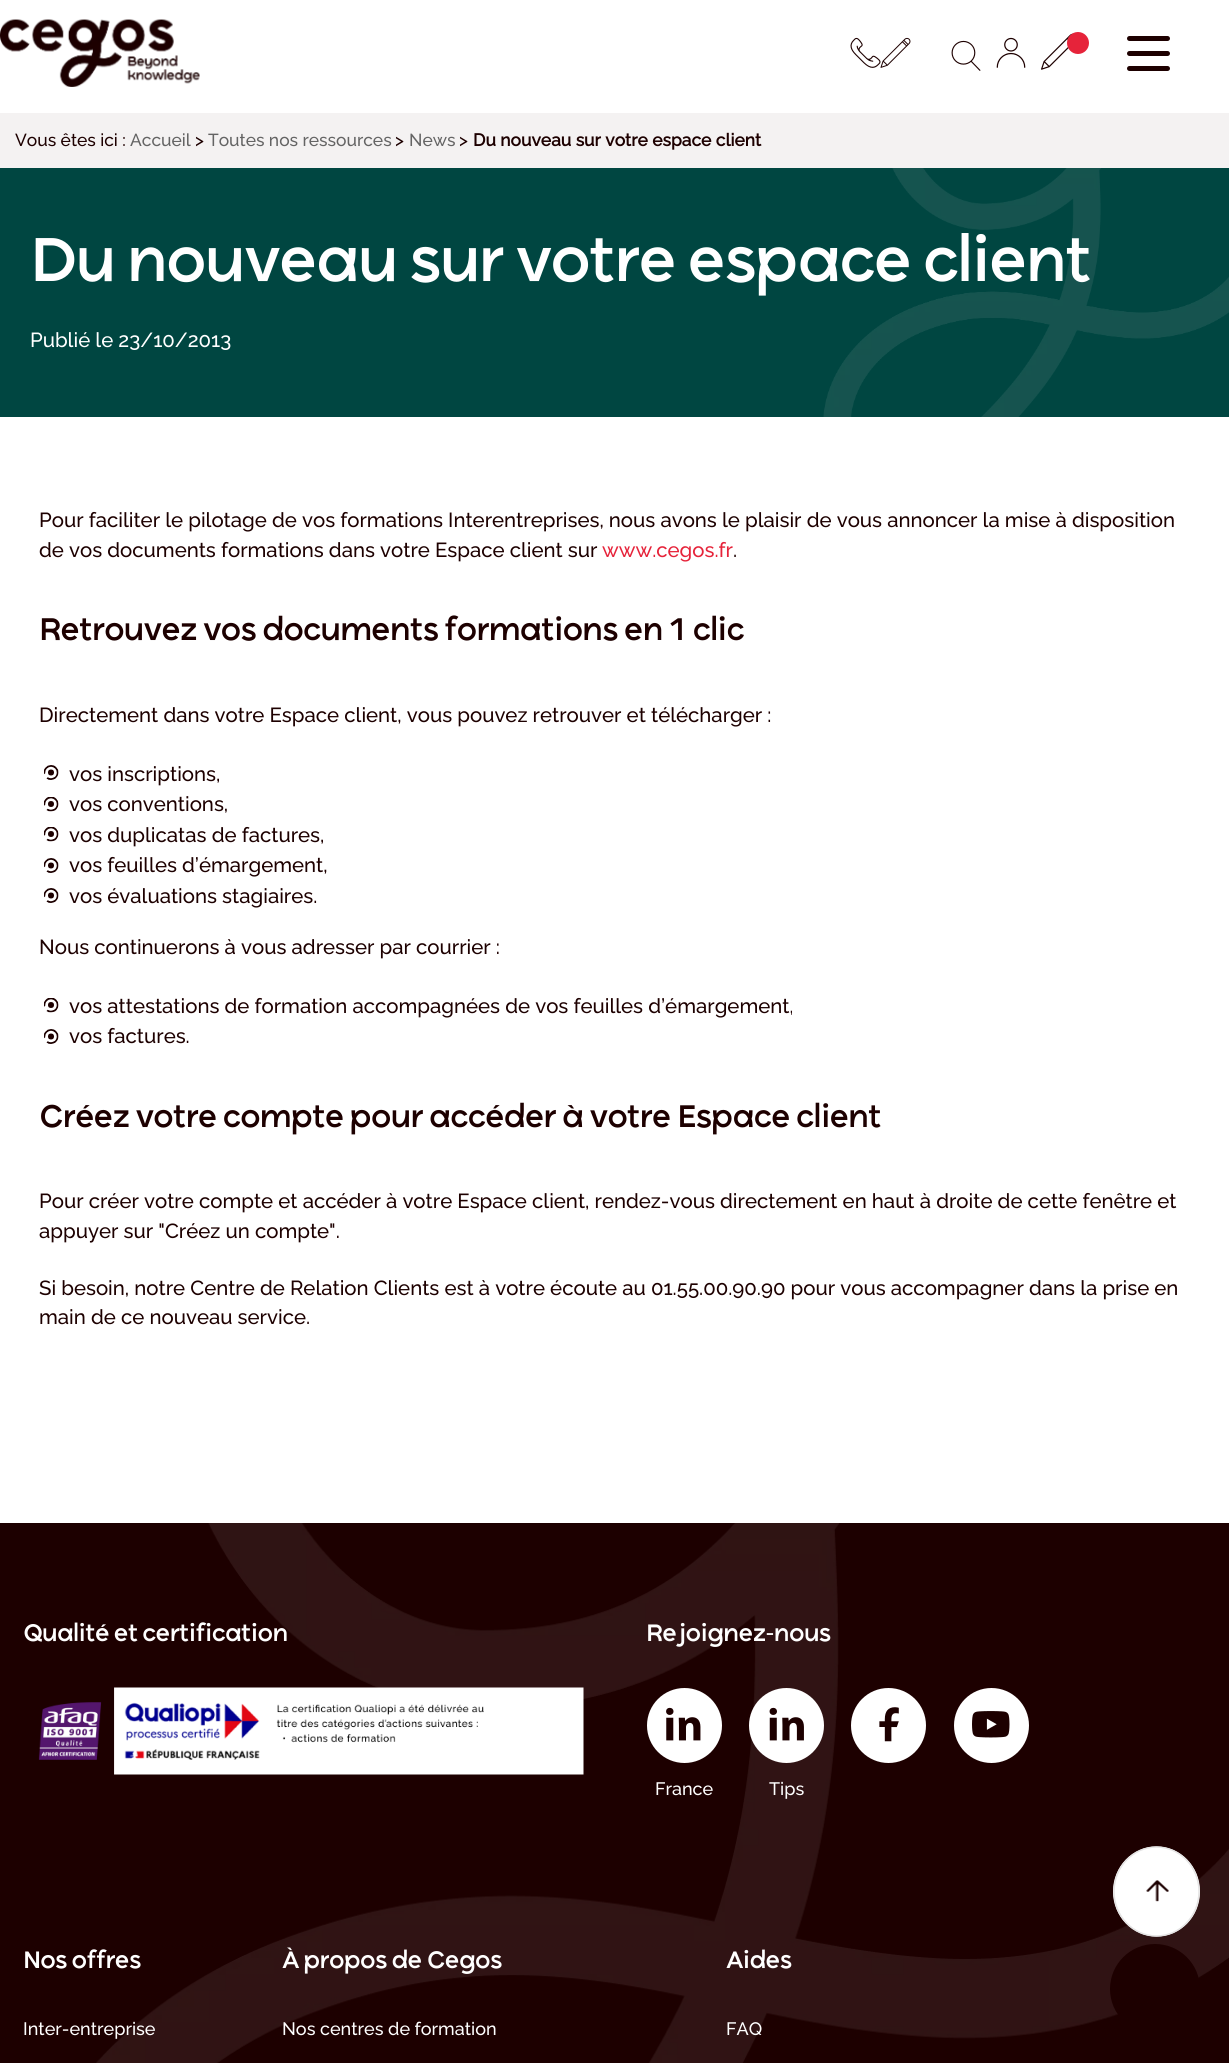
import math
import cairo

surface = cairo.ImageSurface(cairo.FORMAT_RGB24, 1229, 2063)
cr = cairo.Context(surface)
options = cairo.FontOptions()
options.set_hint_metrics(cairo.HINT_METRICS_OFF)
options.set_hint_style(cairo.HINT_STYLE_NONE)
cr.set_font_options(options)
cr.set_miter_limit(4)


def rgb(code):
    cr.set_source_rgb(*(v / 255 for v in bytes.fromhex(code[-6:])))


def rrect(x, y, w, h, r):
    cr.new_sub_path()
    for i, (u, v) in enumerate([(x + w - r, y + h - r), (x + r, y + h - r), (x + r, y + r), (x + w - r, y + r)]):
        cr.arc(u, v, r, i * math.pi / 2, (i + 1) * math.pi / 2)
    cr.close_path()


def image(path, x, y, w, h):
    cr.save()
    cr.set_source_surface(cairo.ImageSurface.create_from_png(path), x, y)
    cr.rectangle(x, y, w, h)
    cr.fill()
    cr.restore()


rgb("#ffffff")
cr.paint()
image("img/1.png", 0, 19, 200, 68)
image("img/2.png", 850, 37, 31, 31)
image("img/3.png", 880, 37, 31, 31)
image("img/4.png", 951, 40, 30, 31)
image("img/5.png", 996, 37, 30, 31)
image("img/6.png", 1041, 33, 33, 37)
rgb("#e6233a")
cr.arc(1078, 43, 11, 0, 2 * math.pi)
cr.fill()
rgb("#1d0000")
rrect(1127, 36, 43, 5, 2.5)
cr.fill()
rrect(1127, 51, 43, 5, 2.5)
cr.fill()
rrect(1127, 66, 43, 5, 2.5)
cr.fill()
rgb("#f4f2f2")
cr.rectangle(0, 113, 1229, 55)
cr.fill()
rgb("#004641")
cr.rectangle(0, 168, 1229, 249)
cr.fill()
image("img/7.png", 823, 168, 406, 249)
image("img/8.png", 44, 765, 15, 15)
image("img/9.png", 44, 797, 15, 15)
image("img/9.png", 44, 827, 15, 15)
image("img/8.png", 44, 858, 15, 15)
image("img/8.png", 44, 888, 15, 15)
image("img/9.png", 44, 998, 15, 15)
image("img/8.png", 44, 1029, 15, 15)
rgb("#1d0000")
cr.rectangle(0, 1523, 1229, 540)
cr.fill()
image("img/11.png", 96, 1523, 1133, 540)
rgb("#ffffff")
cr.new_path()
cr.move_to(1156.5, 1846.5)
cr.curve_to(1180.5, 1846.5, 1200, 1866.5, 1200, 1891.5)
cr.curve_to(1200, 1916.5, 1180.5, 1936.5, 1156.5, 1936.5)
cr.curve_to(1132.5, 1936.5, 1113, 1916.5, 1113, 1891.5)
cr.curve_to(1113, 1866.5, 1132.5, 1846.5, 1156.5, 1846.5)
cr.close_path()
cr.fill()
cr.new_path()
cr.move_to(1156.5, 1847)
cr.curve_to(1180, 1847, 1199, 1867, 1199, 1891.5)
cr.curve_to(1199, 1916, 1180, 1936, 1156.5, 1936)
cr.curve_to(1133, 1936, 1114, 1916, 1114, 1891.5)
cr.curve_to(1114, 1867, 1133, 1847, 1156.5, 1847)
cr.close_path()
rgb("#e4e4e4")
cr.set_line_width(1.5)
cr.stroke()
image("img/10.png", 1146, 1880, 23, 22)
image("img/12.png", 38, 1687, 546, 88)
rgb("#ffffff")
cr.arc(888.5, 1725.5, 37.5, 0, 2 * math.pi)
cr.fill()
image("img/13.png", 879, 1707, 20, 35)
cr.arc(991.5, 1725.5, 37.5, 0, 2 * math.pi)
cr.fill()
image("img/14.png", 972, 1711, 38, 27)
cr.arc(684.5, 1725.5, 37.5, 0, 2 * math.pi)
cr.fill()
image("img/15.png", 666, 1707, 35, 34)
cr.arc(786.5, 1725.5, 37.5, 0, 2 * math.pi)
cr.fill()
image("img/16.png", 769, 1707, 35, 34)
rgb("#1d0000")
cr.arc(1155, 1989, 45, 0, 2 * math.pi)
cr.fill()
cr.select_font_face("Raleway Medium")
cr.set_font_size(17.4)
cr.move_to(15, 146)
cr.show_text("Vous êtes ici :")
rgb("#646464")
cr.move_to(130, 146)
cr.show_text("Accueil")
rgb("#1d0000")
cr.move_to(195, 146)
cr.show_text(">")
rgb("#646464")
cr.move_to(208, 146)
cr.show_text("Toutes nos ressources")
rgb("#1d0000")
cr.move_to(395, 146)
cr.show_text(">")
rgb("#646464")
cr.move_to(409, 146)
cr.show_text("News")
rgb("#1d0000")
cr.move_to(459, 146)
cr.show_text(">")
cr.select_font_face("Raleway", cairo.FONT_SLANT_NORMAL, cairo.FONT_WEIGHT_BOLD)
cr.move_to(473, 146)
cr.show_text("Du nouveau sur votre espace client")
cr.select_font_face("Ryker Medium")
cr.set_font_size(62.4)
rgb("#ffffff")
cr.move_to(30, 281)
cr.show_text("Du nouveau sur votre espace client")
cr.select_font_face("Raleway Medium")
cr.set_font_size(20.37)
cr.move_to(30, 347)
cr.show_text("Publié le 23/10/2013")
rgb("#1d0000")
cr.move_to(39, 527)
cr.show_text("Pour faciliter le pilotage de vos formations Interentreprises, nous avons le plaisir de vous annoncer la mise à disposition")
cr.move_to(39, 557)
cr.show_text("de vos documents formations dans votre Espace client sur")
rgb("#e6233a")
cr.move_to(602, 557)
cr.show_text("www.cegos.fr")
rgb("#1d0000")
cr.move_to(733, 557)
cr.show_text(".")
cr.select_font_face("Ryker Medium")
cr.set_font_size(31.6)
cr.move_to(39, 640)
cr.show_text("Retrouvez vos documents formations en 1 clic")
cr.select_font_face("Raleway Medium")
cr.set_font_size(20.37)
for x, y, s in [
    (39, 722, "Directement dans votre Espace client, vous pouvez retrouver et télécharger :"),
    (69, 781, "vos inscriptions,"),
    (69, 811, "vos conventions,"),
    (69, 842, "vos duplicatas de factures,"),
    (69, 872, "vos feuilles d’émargement,"),
    (69, 903, "vos évaluations stagiaires."),
    (39, 954, "Nous continuerons à vous adresser par courrier :"),
    (69, 1013, "vos attestations de formation accompagnées de vos feuilles d’émargement,"),
    (69, 1043, "vos factures."),
]:
    cr.move_to(x, y)
    cr.show_text(s)
cr.select_font_face("Ryker Medium")
cr.set_font_size(31.6)
cr.move_to(39, 1127)
cr.show_text("Créez votre compte pour accéder à votre Espace client")
cr.select_font_face("Raleway Medium")
cr.set_font_size(20.37)
for x, y, s in [
    (39, 1208, "Pour créer votre compte et accéder à votre Espace client, rendez-vous directement en haut à droite de cette fenêtre et"),
    (39, 1238, "appuyer sur \"Créez un compte\"."),
    (39, 1295, "Si besoin, notre Centre de Relation Clients est à votre écoute au 01.55.00.90.90 pour vous accompagner dans la prise en"),
    (39, 1324, "main de ce nouveau service."),
]:
    cr.move_to(x, y)
    cr.show_text(s)
cr.select_font_face("Ryker Medium")
cr.set_font_size(24)
rgb("#ffffff")
cr.move_to(23, 1641)
cr.show_text("Qualité et certification")
cr.move_to(646, 1641)
cr.show_text("Rejoignez-nous")
cr.select_font_face("Raleway Medium")
cr.set_font_size(18)
cr.move_to(655, 1795)
cr.show_text("France")
cr.move_to(769, 1795)
cr.show_text("Tips")
cr.select_font_face("Ryker Medium")
cr.set_font_size(24)
cr.move_to(23, 1968)
cr.show_text("Nos offres")
cr.select_font_face("Raleway Medium")
cr.set_font_size(18)
cr.move_to(23, 2035)
cr.show_text("Inter-entreprise")
cr.select_font_face("Ryker Medium")
cr.set_font_size(24)
cr.move_to(282, 1968)
cr.show_text("À propos de Cegos")
cr.select_font_face("Raleway Medium")
cr.set_font_size(18)
cr.move_to(282, 2035)
cr.show_text("Nos centres de formation")
cr.select_font_face("Ryker Medium")
cr.set_font_size(24)
cr.move_to(726, 1968)
cr.show_text("Aides")
cr.select_font_face("Raleway Medium")
cr.set_font_size(18)
cr.move_to(726, 2035)
cr.show_text("FAQ")
surface.write_to_png("page.png")
